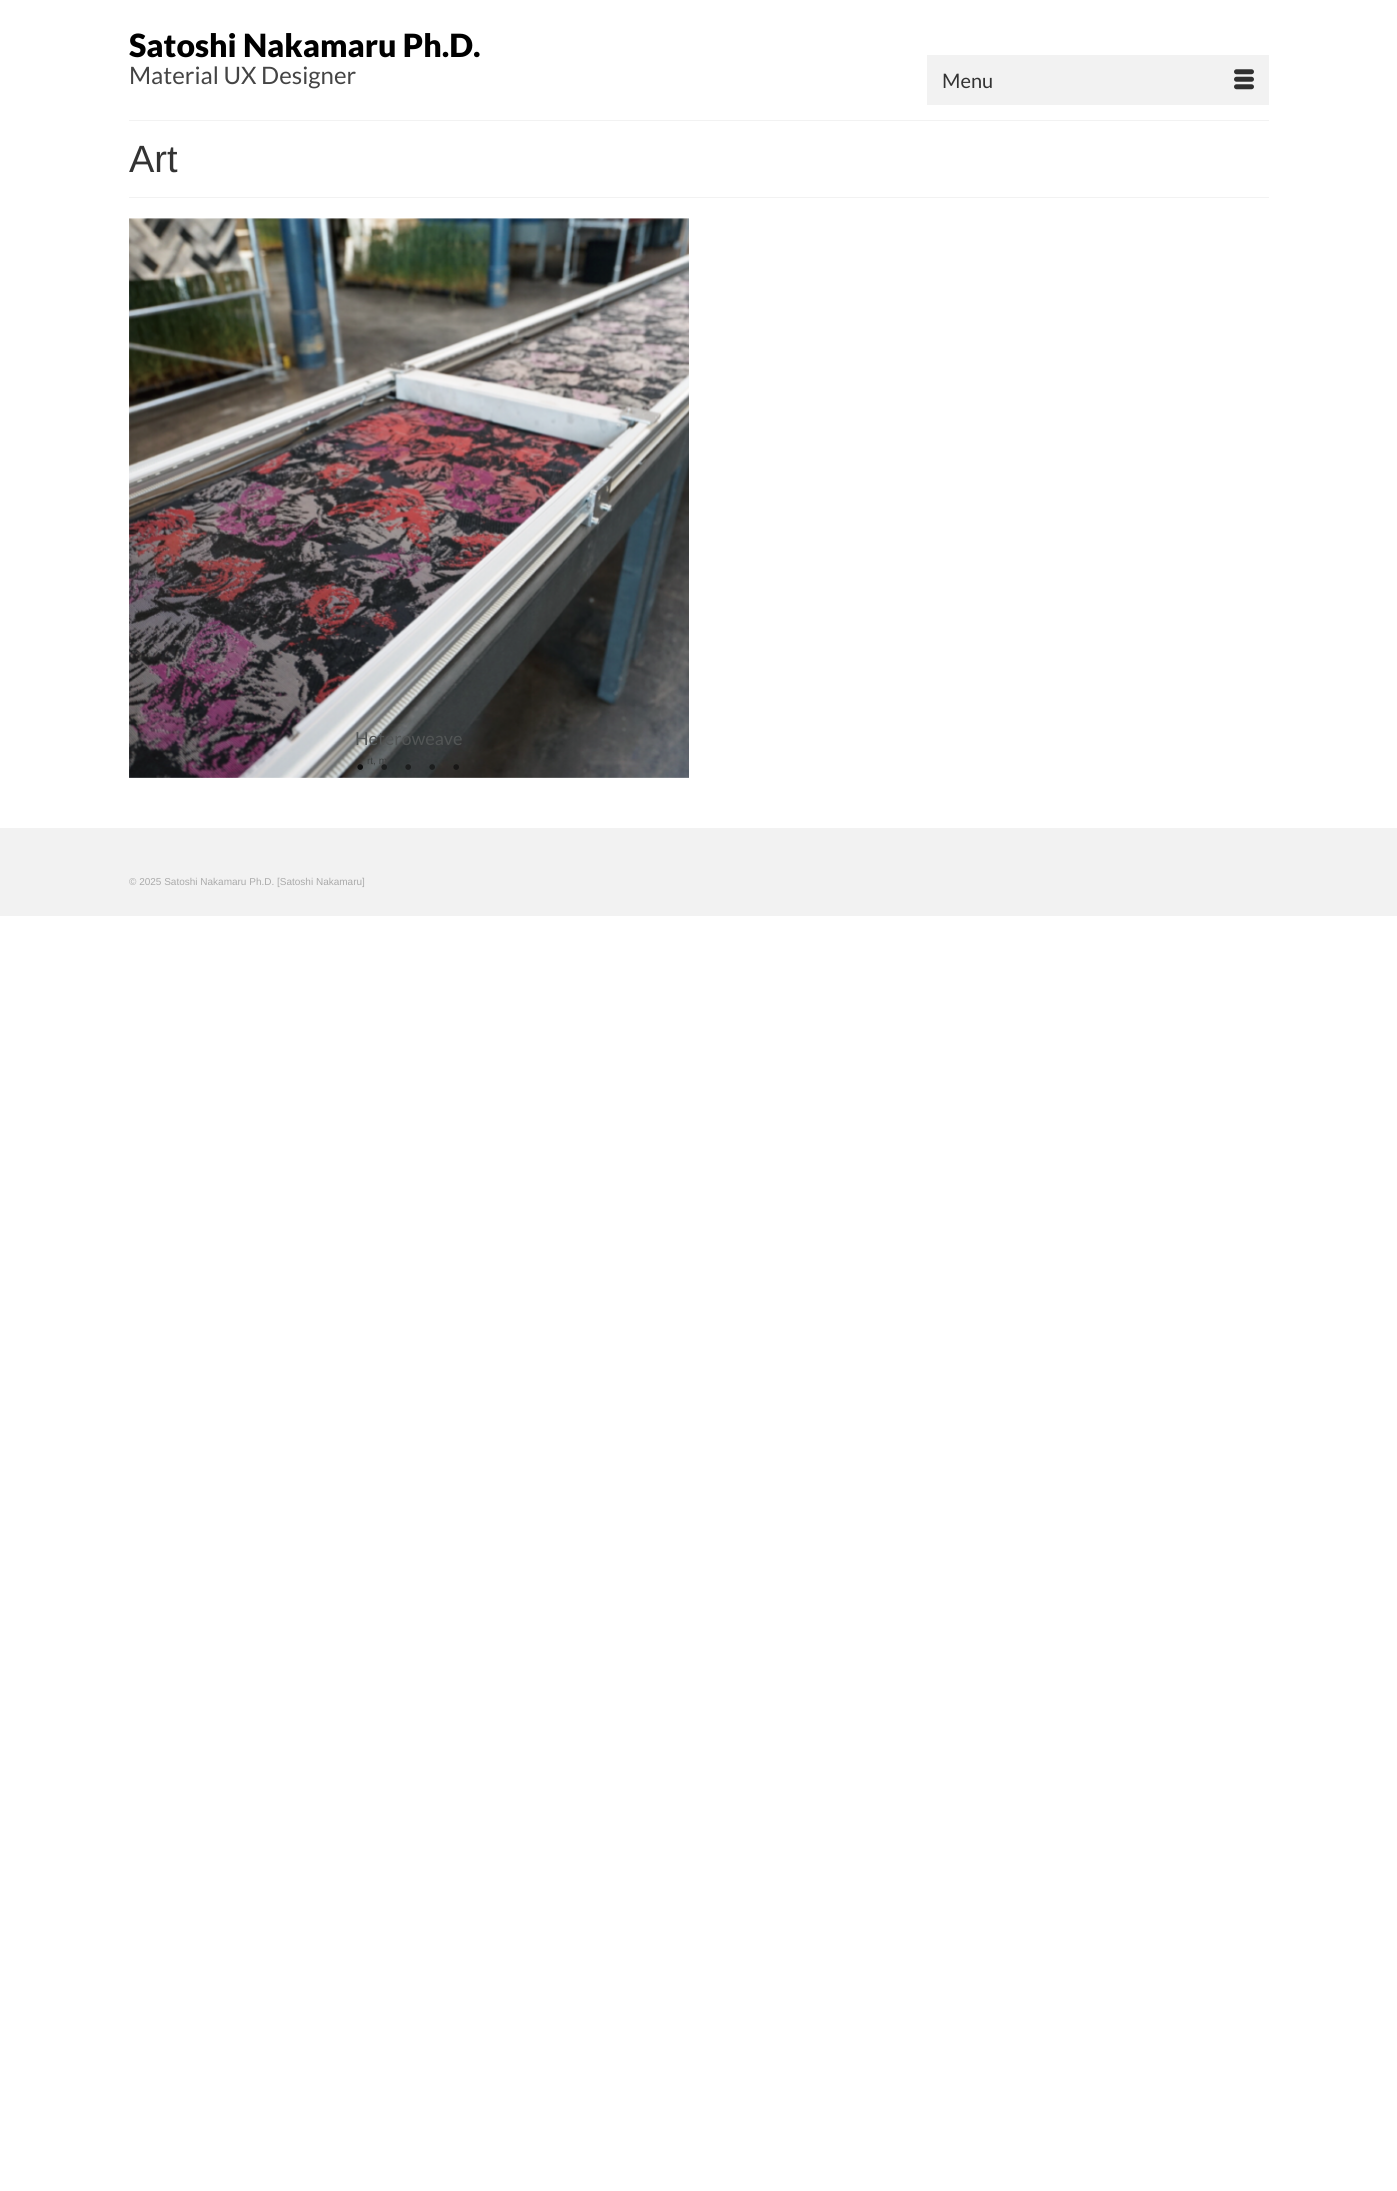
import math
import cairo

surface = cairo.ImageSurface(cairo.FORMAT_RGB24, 1397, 2191)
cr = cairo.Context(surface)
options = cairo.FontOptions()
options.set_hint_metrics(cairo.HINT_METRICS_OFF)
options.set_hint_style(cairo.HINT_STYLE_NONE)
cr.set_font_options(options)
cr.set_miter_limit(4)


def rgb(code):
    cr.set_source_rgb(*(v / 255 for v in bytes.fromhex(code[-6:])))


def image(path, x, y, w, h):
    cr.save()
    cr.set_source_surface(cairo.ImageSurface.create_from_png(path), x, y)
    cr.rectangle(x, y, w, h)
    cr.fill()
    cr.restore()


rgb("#ffffff")
cr.paint()
rgb("#f2f2f2")
cr.rectangle(927, 55, 342, 50)
cr.fill()
image("img/1.png", 1234, 69, 20, 21)
cr.rectangle(129, 120, 1140, 1)
cr.fill()
cr.rectangle(129, 197, 1140, 1)
cr.fill()
image("img/2.png", 129, 218, 560, 560)
cr.rectangle(0, 828, 1397, 88)
cr.fill()
cr.select_font_face("Lato Black")
cr.set_font_size(32)
rgb("#000000")
cr.move_to(129, 57)
cr.show_text("Satoshi Nakamaru Ph.D.")
cr.select_font_face("Lato")
cr.set_font_size(24)
rgb("#444444")
cr.move_to(129, 84)
cr.show_text("Material UX Designer")
cr.set_font_size(20)
rgb("#333333")
cr.move_to(942, 88)
cr.show_text("Menu")
cr.select_font_face("Liberation Sans")
cr.set_font_size(38)
cr.move_to(129, 172)
cr.show_text("Art")
cr.select_font_face("Lato")
cr.set_font_size(18)
rgb("#525555")
cr.move_to(355, 745)
cr.show_text("Heteroweave")
cr.select_font_face("Liberation Sans")
cr.set_font_size(10)
rgb("#3c3f3f")
cr.move_to(367, 764)
cr.show_text("rt, m")
cr.select_font_face("Liberation Serif")
cr.set_font_size(24)
rgb("#0f0f0f")
cr.move_to(356, 775)
cr.show_text("•")
rgb("#1c1e1e")
for x, y, s in [
    (380, 775, "•"),
    (404, 775, "•"),
    (428, 775, "•"),
]:
    cr.move_to(x, y)
    cr.show_text(s)
rgb("#181716")
cr.move_to(452, 775)
cr.show_text("•")
cr.select_font_face("Liberation Sans")
cr.set_font_size(10)
rgb("#aaaaaa")
cr.move_to(129, 885)
cr.show_text("© 2025 Satoshi Nakamaru Ph.D. [Satoshi Nakamaru]")
surface.write_to_png("page.png")
